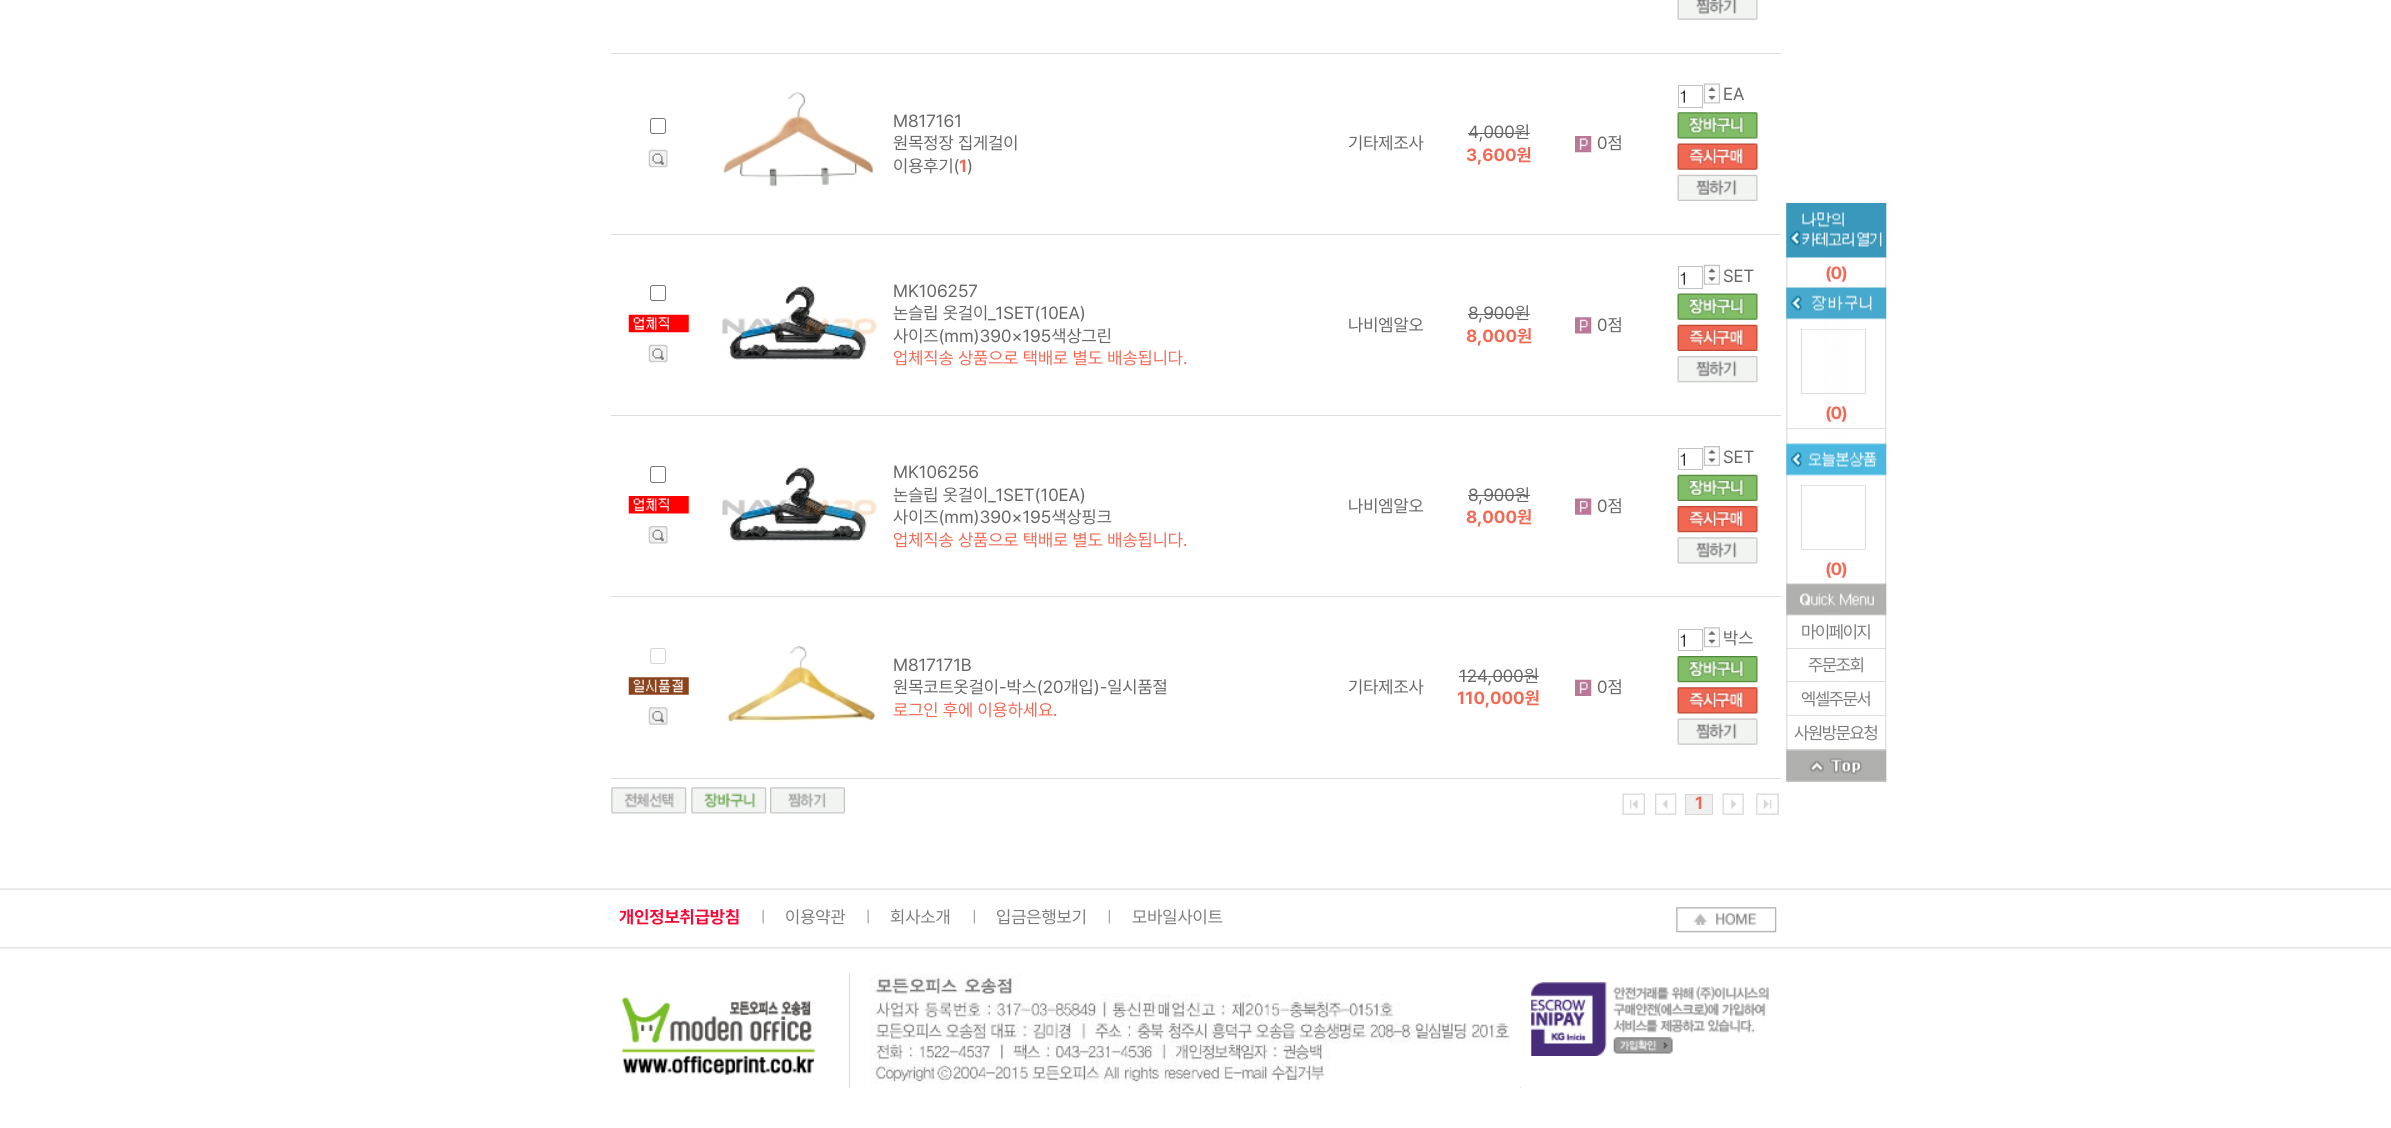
import math
import cairo

surface = cairo.ImageSurface(cairo.FORMAT_RGB24, 2391, 1128)
cr = cairo.Context(surface)
options = cairo.FontOptions()
options.set_hint_metrics(cairo.HINT_METRICS_OFF)
options.set_hint_style(cairo.HINT_STYLE_NONE)
cr.set_font_options(options)
cr.set_miter_limit(4)


def rgb(code):
    cr.set_source_rgb(*(v / 255 for v in bytes.fromhex(code[-6:])))


def tracked(x, y, s, letter, word):
    cr.move_to(x, y)
    for ch in s:
        cr.show_text(ch)
        cr.rel_move_to(letter + word * (ch == ' '), 0)


def rrect(x, y, w, h, r):
    cr.new_sub_path()
    for i, (u, v) in enumerate([(x + w - r, y + h - r), (x + r, y + h - r), (x + r, y + r), (x + w - r, y + r)]):
        cr.arc(u, v, r, i * math.pi / 2, (i + 1) * math.pi / 2)
    cr.close_path()


def image(path, x, y, w, h):
    cr.save()
    cr.set_source_surface(cairo.ImageSurface.create_from_png(path), x, y)
    cr.rectangle(x, y, w, h)
    cr.fill()
    cr.restore()


rgb("#ffffff")
cr.paint()
rgb("#dddddd")
cr.rectangle(611, 53, 1170, 1)
cr.fill()
image("img/1.png", 1677, 0, 81, 20)
rrect(650.5, 118.5, 15, 15, 2)
rgb("#767676")
cr.set_line_width(1)
cr.stroke()
image("img/2.png", 648, 149, 20, 19)
image("img/3.png", 722, 92, 152, 95)
rgb("#666666")
cr.rectangle(1468, 133, 62, 1)
cr.fill()
image("img/4.png", 1575, 136, 17, 17)
rgb("#dddddd")
cr.rectangle(611, 234, 1170, 1)
cr.fill()
cr.rectangle(1678.5, 85.5, 24, 22)
rgb("#c2c2c2")
cr.stroke()
image("img/5.png", 1703, 83, 17, 11)
image("img/6.png", 1703, 93, 17, 11)
image("img/7.png", 1677, 112, 81, 27)
image("img/8.png", 1677, 143, 81, 27)
image("img/9.png", 1677, 174, 81, 27)
rgb("#dddddd")
cr.rectangle(611, 415, 1170, 1)
cr.fill()
cr.rectangle(1678.5, 266.5, 24, 22)
rgb("#c2c2c2")
cr.stroke()
image("img/10.png", 1703, 264, 17, 11)
image("img/11.png", 1703, 275, 17, 10)
image("img/12.png", 1677, 293, 81, 27)
image("img/13.png", 1677, 324, 81, 27)
image("img/14.png", 1677, 356, 81, 27)
rrect(650.5, 285.5, 15, 15, 2)
rgb("#767676")
cr.stroke()
image("img/15.png", 628, 314, 61, 19)
image("img/2.png", 648, 344, 20, 19)
image("img/16.png", 722, 285, 156, 75)
rgb("#666666")
cr.rectangle(1468, 314, 62, 1)
cr.fill()
image("img/17.png", 1575, 317, 17, 17)
rgb("#dddddd")
cr.rectangle(611, 596, 1170, 1)
cr.fill()
cr.rectangle(1678.5, 448.5, 24, 21)
rgb("#c2c2c2")
cr.stroke()
image("img/18.png", 1703, 446, 17, 10)
image("img/19.png", 1703, 456, 17, 10)
image("img/20.png", 1677, 474, 81, 27)
image("img/21.png", 1677, 506, 81, 27)
image("img/22.png", 1677, 537, 81, 27)
rrect(650.5, 466.5, 15, 16, 2)
rgb("#767676")
cr.stroke()
image("img/23.png", 628, 496, 61, 18)
image("img/24.png", 648, 526, 20, 18)
image("img/25.png", 722, 467, 156, 75)
rgb("#666666")
cr.rectangle(1468, 495, 62, 1)
cr.fill()
image("img/26.png", 1575, 498, 17, 17)
rgb("#dddddd")
cr.rectangle(611, 778, 1170, 1)
cr.fill()
cr.rectangle(1678.5, 629.5, 24, 21)
rgb("#c2c2c2")
cr.stroke()
image("img/27.png", 1703, 627, 17, 11)
image("img/28.png", 1703, 637, 17, 11)
image("img/29.png", 1677, 656, 81, 27)
image("img/30.png", 1677, 687, 81, 27)
image("img/31.png", 1677, 718, 81, 27)
rrect(650.5, 648.5, 15, 15, 2)
rgb("#d6d6d6")
cr.stroke()
image("img/32.png", 628, 677, 61, 18)
image("img/33.png", 648, 707, 20, 18)
image("img/34.png", 726, 646, 150, 77)
rgb("#666666")
cr.rectangle(1459, 676, 80, 1)
cr.fill()
image("img/35.png", 1575, 679, 17, 17)
image("img/36.png", 611, 787, 76, 27)
image("img/37.png", 691, 787, 76, 27)
image("img/38.png", 770, 787, 75, 27)
image("img/39.png", 1622, 793, 23, 22)
image("img/40.png", 1655, 793, 22, 22)
rgb("#efefef")
cr.rectangle(1685.5, 794.5, 27, 20)
cr.fill_preserve()
rgb("#d6d6d6")
cr.stroke()
image("img/41.png", 1722, 793, 22, 22)
image("img/42.png", 1756, 793, 23, 22)
image("img/43.png", 1786, 203, 101, 579)
image("img/44.png", 1786, 203, 101, 55)
image("img/45.png", 1786, 287, 101, 33)
cr.rectangle(1801.5, 329.5, 64, 64)
rgb("#dddddd")
cr.stroke()
image("img/46.png", 1802, 329, 63, 1)
cr.rectangle(1786, 428, 100, 1)
cr.fill()
image("img/47.png", 1789, 444, 7, 1)
image("img/48.png", 1786, 443, 101, 33)
cr.rectangle(1801.5, 485.5, 64, 64)
cr.stroke()
image("img/49.png", 1803, 485, 62, 65)
image("img/50.png", 1786, 583, 101, 33)
for x, y, w, h, color in [
    (1786, 648, 100, 1, "#dddddd"),
    (1786, 681, 100, 1, "#dddddd"),
    (1786, 715, 100, 1, "#dddddd"),
    (1786, 749, 100, 1, "#dddddd"),
]:
    rgb(color)
    cr.rectangle(x, y, w, h)
    cr.fill()
image("img/51.png", 1786, 749, 101, 33)
image("img/52.png", 0, 888, 2391, 61)
image("img/53.png", 762, 909, 2, 15)
image("img/53.png", 867, 909, 2, 15)
image("img/54.png", 973, 909, 2, 15)
image("img/54.png", 1108, 909, 2, 15)
image("img/55.png", 1676, 907, 101, 26)
image("img/56.png", 622, 997, 193, 78)
rgb("#dcdcdc")
cr.rectangle(1520, 1087, 1, 1)
cr.fill()
cr.rectangle(849, 974, 1, 114)
cr.fill()
image("img/57.png", 870, 973, 651, 115)
image("img/58.png", 1531, 982, 238, 74)
cr.select_font_face("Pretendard")
cr.set_font_size(17.5)
rgb("#666666")
for x, y, s in [
    (893, 127, "M817161"),
    (893, 149, "원목정장 집게걸이"),
    (893, 172, "이용후기("),
]:
    cr.move_to(x, y)
    cr.show_text(s)
cr.select_font_face("Pretendard", cairo.FONT_SLANT_NORMAL, cairo.FONT_WEIGHT_BOLD)
rgb("#f36853")
cr.move_to(959, 172)
cr.show_text("1")
cr.select_font_face("Pretendard")
rgb("#666666")
for x, y, s in [
    (967, 172, ")"),
    (1348, 149, "기타제조사"),
    (1468, 138, "4,000원"),
]:
    cr.move_to(x, y)
    cr.show_text(s)
cr.select_font_face("Pretendard", cairo.FONT_SLANT_NORMAL, cairo.FONT_WEIGHT_BOLD)
rgb("#f36853")
cr.move_to(1466, 161)
cr.show_text("3,600원")
cr.select_font_face("Pretendard")
rgb("#666666")
cr.move_to(1597, 149)
cr.show_text("0점")
cr.select_font_face("Dotum")
rgb("#000000")
cr.move_to(1679, 103)
cr.show_text("1")
cr.select_font_face("Pretendard")
rgb("#666666")
cr.move_to(1723, 100)
cr.show_text("EA")
cr.select_font_face("Dotum")
rgb("#000000")
cr.move_to(1679, 285)
cr.show_text("1")
cr.select_font_face("Pretendard")
rgb("#666666")
for x, y, s in [
    (1723, 282, "SET"),
    (893, 297, "MK106257"),
    (893, 319, "논슬립 옷걸이_1SET(10EA)"),
    (893, 342, "사이즈(mm)390×195색상그린"),
]:
    cr.move_to(x, y)
    cr.show_text(s)
rgb("#f36853")
cr.move_to(893, 364)
cr.show_text("업체직송 상품으로 택배로 별도 배송됩니다.")
rgb("#666666")
cr.move_to(1348, 331)
cr.show_text("나비엠알오")
cr.move_to(1468, 319)
cr.show_text("8,900원")
cr.select_font_face("Pretendard", cairo.FONT_SLANT_NORMAL, cairo.FONT_WEIGHT_BOLD)
rgb("#f36853")
cr.move_to(1466, 342)
cr.show_text("8,000원")
cr.select_font_face("Pretendard")
rgb("#666666")
cr.move_to(1597, 331)
cr.show_text("0점")
cr.select_font_face("Dotum")
rgb("#000000")
cr.move_to(1679, 466)
cr.show_text("1")
cr.select_font_face("Pretendard")
rgb("#666666")
for x, y, s in [
    (1723, 463, "SET"),
    (893, 478, "MK106256"),
    (893, 501, "논슬립 옷걸이_1SET(10EA)"),
    (893, 523, "사이즈(mm)390×195색상핑크"),
]:
    cr.move_to(x, y)
    cr.show_text(s)
rgb("#f36853")
cr.move_to(893, 546)
cr.show_text("업체직송 상품으로 택배로 별도 배송됩니다.")
rgb("#666666")
cr.move_to(1348, 512)
cr.show_text("나비엠알오")
cr.move_to(1468, 501)
cr.show_text("8,900원")
cr.select_font_face("Pretendard", cairo.FONT_SLANT_NORMAL, cairo.FONT_WEIGHT_BOLD)
rgb("#f36853")
cr.move_to(1466, 523)
cr.show_text("8,000원")
cr.select_font_face("Pretendard")
rgb("#666666")
cr.move_to(1597, 512)
cr.show_text("0점")
cr.select_font_face("Dotum")
rgb("#000000")
cr.move_to(1679, 647)
cr.show_text("1")
cr.select_font_face("Pretendard")
rgb("#666666")
for x, y, s in [
    (1723, 644, "박스"),
    (893, 671, "M817171B"),
    (893, 693, "원목코트옷걸이-박스(20개입)-일시품절"),
]:
    cr.move_to(x, y)
    cr.show_text(s)
rgb("#f36853")
cr.move_to(893, 716)
cr.show_text("로그인 후에 이용하세요.")
rgb("#666666")
cr.move_to(1348, 693)
cr.show_text("기타제조사")
cr.move_to(1459, 682)
cr.show_text("124,000원")
cr.select_font_face("Pretendard", cairo.FONT_SLANT_NORMAL, cairo.FONT_WEIGHT_BOLD)
rgb("#f36853")
cr.move_to(1457, 704)
cr.show_text("110,000원")
cr.select_font_face("Pretendard")
rgb("#666666")
cr.move_to(1597, 693)
cr.show_text("0점")
cr.select_font_face("Pretendard", cairo.FONT_SLANT_NORMAL, cairo.FONT_WEIGHT_BOLD)
rgb("#f36853")
cr.move_to(1695, 809)
cr.show_text("1")
for x, y, s in [
    (1825, 279, "(0)"),
    (1825, 419, "(0)"),
    (1825, 575, "(0)"),
]:
    tracked(x, y, s, -1.25, 0)
cr.select_font_face("Pretendard")
rgb("#7b7b7b")
for x, y, s in [
    (1801, 638, "마이페이지"),
    (1808, 671, "주문조회"),
    (1801, 705, "엑셀주문서"),
    (1794, 739, "사원방문요청"),
]:
    tracked(x, y, s, -1.25, 0)
cr.select_font_face("Pretendard", cairo.FONT_SLANT_NORMAL, cairo.FONT_WEIGHT_BOLD)
rgb("#f60935")
cr.move_to(619, 923)
cr.show_text("개인정보취급방침")
cr.select_font_face("Pretendard")
rgb("#7b7b7b")
for x, y, s in [
    (785, 923, "이용약관"),
    (890, 923, "회사소개"),
    (996, 923, "입금은행보기"),
    (1132, 923, "모바일사이트"),
]:
    cr.move_to(x, y)
    cr.show_text(s)
surface.write_to_png("page.png")
